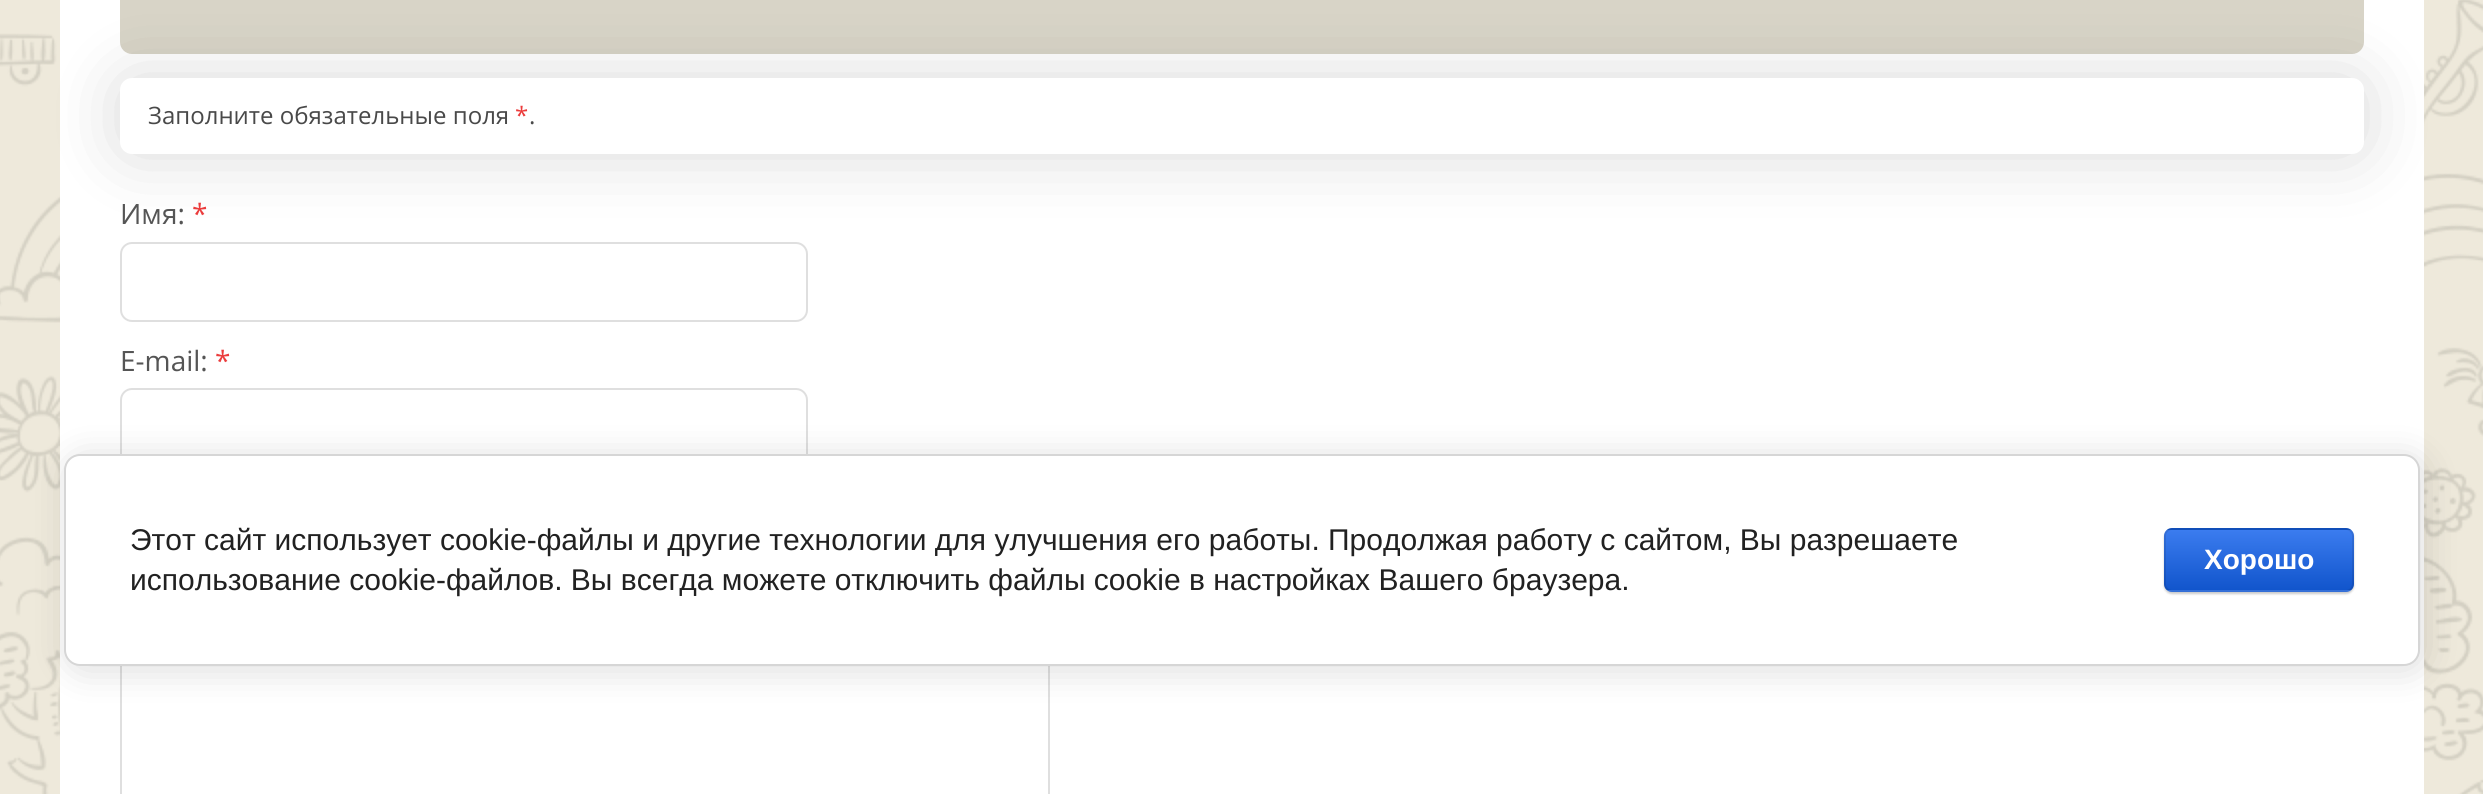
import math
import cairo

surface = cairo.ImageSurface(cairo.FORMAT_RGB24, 2483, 794)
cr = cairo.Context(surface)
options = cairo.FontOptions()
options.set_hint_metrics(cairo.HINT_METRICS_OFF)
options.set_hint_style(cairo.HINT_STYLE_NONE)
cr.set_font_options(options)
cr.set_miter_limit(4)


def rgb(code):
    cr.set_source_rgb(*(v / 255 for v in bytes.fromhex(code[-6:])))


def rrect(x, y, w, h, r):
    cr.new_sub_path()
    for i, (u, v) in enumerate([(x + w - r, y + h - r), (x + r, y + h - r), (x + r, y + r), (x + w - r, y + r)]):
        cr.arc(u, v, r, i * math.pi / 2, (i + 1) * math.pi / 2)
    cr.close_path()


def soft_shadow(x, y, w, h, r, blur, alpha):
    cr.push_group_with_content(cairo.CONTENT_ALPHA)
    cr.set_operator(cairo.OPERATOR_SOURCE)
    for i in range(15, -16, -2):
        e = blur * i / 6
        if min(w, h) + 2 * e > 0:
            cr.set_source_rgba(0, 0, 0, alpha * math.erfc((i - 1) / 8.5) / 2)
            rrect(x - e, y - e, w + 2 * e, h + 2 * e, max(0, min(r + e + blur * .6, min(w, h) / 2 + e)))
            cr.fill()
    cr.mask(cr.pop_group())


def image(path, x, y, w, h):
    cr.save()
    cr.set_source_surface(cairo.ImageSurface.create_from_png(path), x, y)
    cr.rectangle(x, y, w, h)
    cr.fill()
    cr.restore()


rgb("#eee9db")
cr.paint()
image("img/1.png", 0, 0, 2483, 794)
rgb("#ffffff")
cr.rectangle(60, 0, 2364, 794)
cr.fill()
rgb("#d8d4c7")
rrect(120, -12, 2244, 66, 12)
cr.fill()
rgb("#000000")
soft_shadow(120, 78, 2244, 76, 12, 35, 0.15)
rgb("#ffffff")
rrect(120, 78, 2244, 76, 12)
cr.fill()
rrect(121, 243, 686, 78, 11)
rgb("#dfdfdf")
cr.stroke()
rrect(121, 389, 686, 78, 11)
cr.stroke()
cr.rectangle(121, 537, 928, 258)
cr.stroke()
rgb("#000000")
soft_shadow(68, 458, 2356, 212, 16, 18, 0.14)
rgb("#ffffff")
rrect(65, 455, 2354, 210, 15)
cr.fill_preserve()
rgb("#d6d6d6")
cr.stroke()
rgb("#000000")
soft_shadow(2164, 530, 190, 64, 8, 1, 0.2)
cr.save()
rrect(2164, 528, 190, 64, 8)
cr.clip()
gradient = cairo.LinearGradient(2259, 470, 2259, 530)
gradient.add_color_stop_rgba(0, 0.231, 0.486, 0.937, 1)
gradient.add_color_stop_rgba(1, 0.067, 0.333, 0.8, 1)
cr.set_source(gradient)
cr.rectangle(2164, 528, 190, 2)
cr.fill()
gradient = cairo.LinearGradient(2259, 530, 2259, 590)
gradient.add_color_stop_rgba(0, 0.231, 0.486, 0.937, 1)
gradient.add_color_stop_rgba(1, 0.067, 0.333, 0.8, 1)
cr.set_source(gradient)
cr.rectangle(2164, 530, 190, 60)
cr.fill()
gradient = cairo.LinearGradient(2259, 590, 2259, 650)
gradient.add_color_stop_rgba(0, 0.231, 0.486, 0.937, 1)
gradient.add_color_stop_rgba(1, 0.067, 0.333, 0.8, 1)
cr.set_source(gradient)
cr.rectangle(2164, 590, 190, 2)
cr.fill()
cr.restore()
rrect(2165, 529, 188, 62, 7)
cr.set_source_rgba(0, 0, 0, 0.1)
cr.stroke()
cr.select_font_face("Open Sans")
cr.set_font_size(24)
rgb("#494949")
cr.move_to(148, 124)
cr.show_text("Заполните обязательные поля")
rgb("#eb3c3c")
cr.move_to(515, 124)
cr.show_text("*")
rgb("#494949")
cr.move_to(529, 124)
cr.show_text(".")
cr.set_font_size(28)
rgb("#555555")
cr.move_to(120, 224)
cr.show_text("Имя:")
rgb("#eb3c3c")
cr.move_to(192, 224)
cr.show_text("*")
rgb("#555555")
cr.move_to(120, 371)
cr.show_text("E-mail:")
rgb("#eb3c3c")
cr.move_to(215, 371)
cr.show_text("*")
cr.select_font_face("Liberation Sans")
cr.set_font_size(30)
rgb("#212121")
cr.move_to(130, 550)
cr.show_text("Этот сайт использует cookie-файлы и другие технологии для улучшения его работы. Продолжая работу с сайтом, Вы разрешаете")
cr.move_to(130, 590)
cr.show_text("использование cookie-файлов. Вы всегда можете отключить файлы cookie в настройках Вашего браузера.")
cr.select_font_face("Liberation Sans", cairo.FONT_SLANT_NORMAL, cairo.FONT_WEIGHT_BOLD)
cr.set_font_size(28)
rgb("#ffffff")
cr.move_to(2204, 569)
cr.show_text("Хорошо")
surface.write_to_png("page.png")
